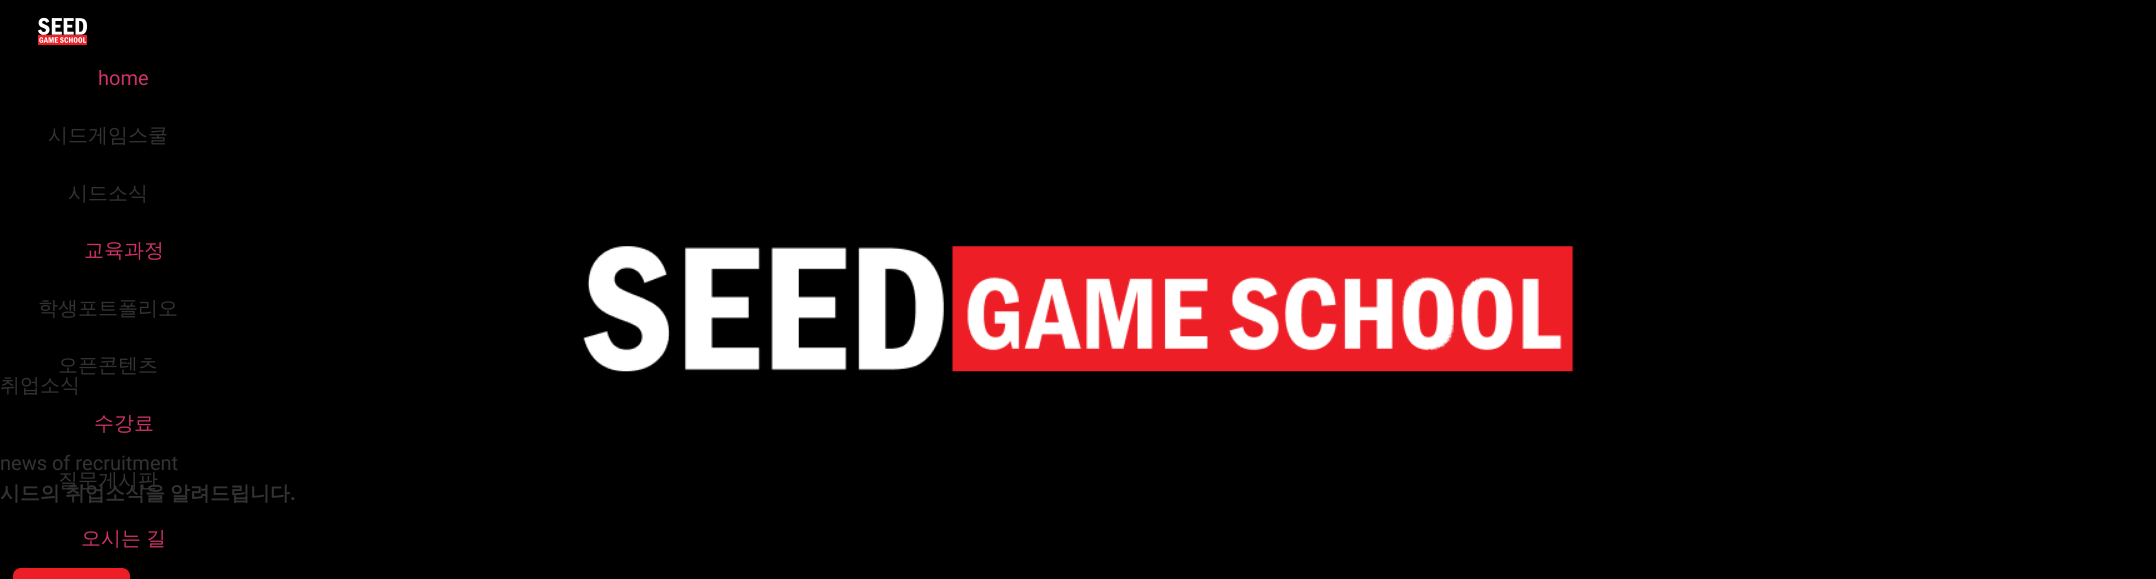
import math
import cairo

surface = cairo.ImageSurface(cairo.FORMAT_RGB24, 2156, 579)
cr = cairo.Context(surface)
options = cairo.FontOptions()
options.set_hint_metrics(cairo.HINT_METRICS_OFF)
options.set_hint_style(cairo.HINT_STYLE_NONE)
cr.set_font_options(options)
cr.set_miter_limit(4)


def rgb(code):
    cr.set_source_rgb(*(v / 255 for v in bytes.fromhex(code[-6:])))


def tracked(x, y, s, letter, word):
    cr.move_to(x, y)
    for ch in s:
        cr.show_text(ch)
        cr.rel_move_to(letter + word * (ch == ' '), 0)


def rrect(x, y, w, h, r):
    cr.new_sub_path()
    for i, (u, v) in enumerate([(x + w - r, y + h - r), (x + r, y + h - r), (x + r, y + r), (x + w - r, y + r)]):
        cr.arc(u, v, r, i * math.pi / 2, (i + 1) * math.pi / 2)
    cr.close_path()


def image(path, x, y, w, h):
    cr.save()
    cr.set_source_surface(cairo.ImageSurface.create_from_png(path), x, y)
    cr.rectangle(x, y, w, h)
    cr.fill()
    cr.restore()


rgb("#000000")
cr.paint()
image("img/1.png", 38, 17, 50, 28)
rgb("#ed1e25")
rrect(13, 568, 117, 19, 8)
cr.fill()
image("img/2.png", 583, 246, 991, 126)
cr.select_font_face("Roboto")
cr.set_font_size(20)
rgb("#cc3366")
cr.move_to(98, 85)
cr.show_text("home")
cr.select_font_face("WenQuanYi Zen Hei Medium")
rgb("#333333")
cr.move_to(48, 142)
cr.show_text("시드게임스쿨")
cr.move_to(68, 200)
cr.show_text("시드소식")
rgb("#cc3366")
cr.move_to(84, 257)
cr.show_text("교육과정")
rgb("#333333")
cr.move_to(38, 315)
cr.show_text("학생포트폴리오")
cr.move_to(58, 372)
cr.show_text("오픈콘텐츠")
rgb("#cc3366")
cr.move_to(94, 430)
cr.show_text("수강료")
rgb("#333333")
cr.move_to(58, 487)
cr.show_text("질문게시판")
rgb("#cc3366")
tracked(81, 545, "오시는 길", 0, -1)
rgb("#333333")
cr.move_to(0, 392)
cr.show_text("취업소식")
cr.select_font_face("Roboto")
cr.move_to(0, 470)
cr.show_text("news of recruitment")
cr.select_font_face("WenQuanYi Zen Hei", cairo.FONT_SLANT_NORMAL, cairo.FONT_WEIGHT_BOLD)
tracked(0, 500, "시드의 취업소식을 알려드립니다", 0, -1)
cr.select_font_face("Roboto", cairo.FONT_SLANT_NORMAL, cairo.FONT_WEIGHT_BOLD)
cr.move_to(290, 500)
cr.show_text(".")
surface.write_to_png("page.png")
